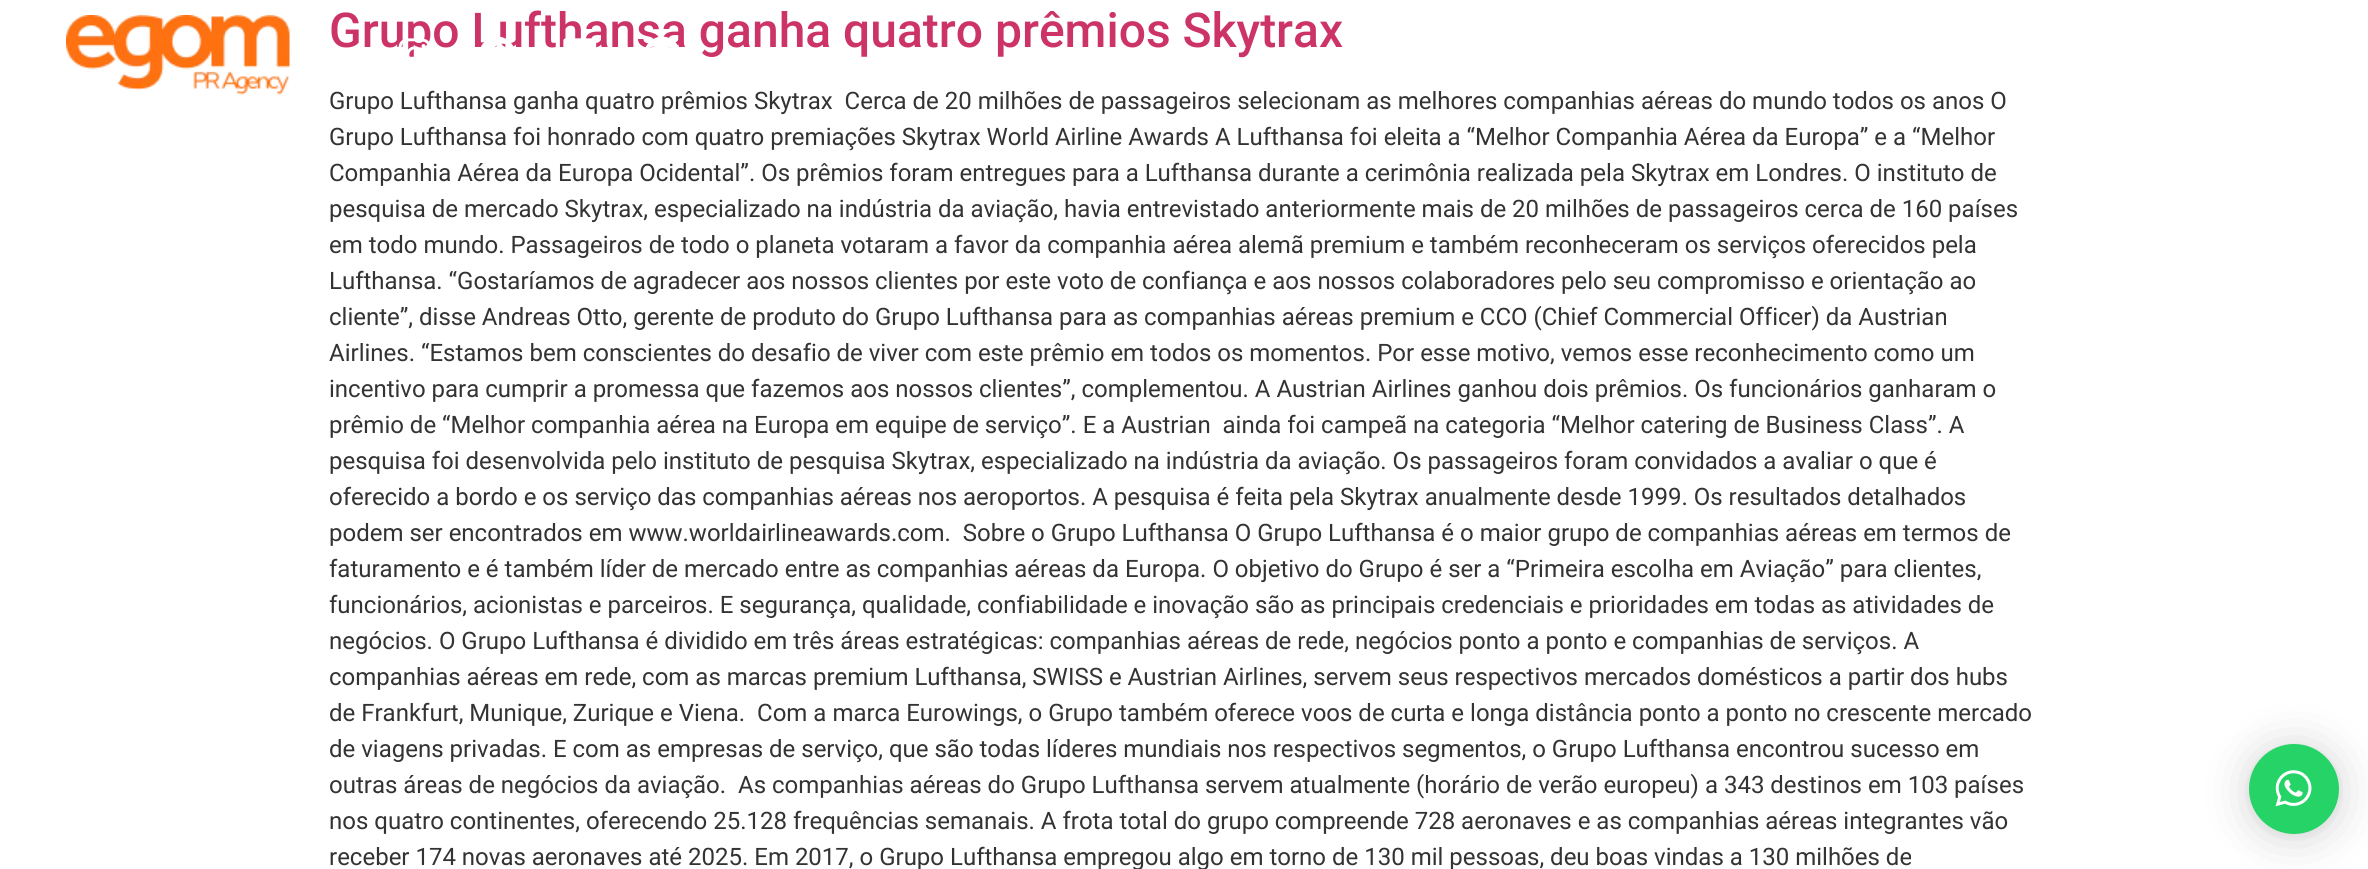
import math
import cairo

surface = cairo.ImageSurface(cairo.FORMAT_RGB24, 2368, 869)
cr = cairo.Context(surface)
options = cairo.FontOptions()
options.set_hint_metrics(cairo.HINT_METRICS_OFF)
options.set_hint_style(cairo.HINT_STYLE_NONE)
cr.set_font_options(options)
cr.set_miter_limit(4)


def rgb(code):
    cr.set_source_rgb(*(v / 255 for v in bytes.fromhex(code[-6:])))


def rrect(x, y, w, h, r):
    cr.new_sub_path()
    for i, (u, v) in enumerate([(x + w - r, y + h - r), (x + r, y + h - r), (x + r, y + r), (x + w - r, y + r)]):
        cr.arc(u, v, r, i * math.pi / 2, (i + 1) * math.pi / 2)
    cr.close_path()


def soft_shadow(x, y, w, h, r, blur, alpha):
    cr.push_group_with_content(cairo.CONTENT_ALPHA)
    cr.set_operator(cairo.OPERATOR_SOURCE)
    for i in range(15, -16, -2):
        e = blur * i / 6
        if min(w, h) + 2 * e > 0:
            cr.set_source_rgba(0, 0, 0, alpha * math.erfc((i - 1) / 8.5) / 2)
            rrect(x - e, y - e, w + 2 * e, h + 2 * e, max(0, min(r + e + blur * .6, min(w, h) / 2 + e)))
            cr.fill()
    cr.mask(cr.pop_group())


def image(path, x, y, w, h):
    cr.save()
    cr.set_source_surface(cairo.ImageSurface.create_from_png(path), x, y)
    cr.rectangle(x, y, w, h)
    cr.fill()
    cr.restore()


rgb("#ffffff")
cr.paint()
image("img/1.png", 66, 15, 224, 80)
rgb("#000000")
soft_shadow(2249, 747, 90, 90, 45, 24, 0.16)
soft_shadow(2249, 746, 90, 90, 45, 4.5, 0.06)
rgb("#25d366")
cr.arc(2294, 789, 45, 0, 2 * math.pi)
cr.fill()
image("img/6.png", 2275, 770, 37, 37)
cr.select_font_face("Roboto Medium")
cr.set_font_size(48)
rgb("#cc3366")
cr.move_to(329, 47)
cr.show_text("Grupo Lufthansa ganha quatro prêmios Skytrax")
cr.select_font_face("Roboto")
cr.set_font_size(24)
rgb("#333333")
for x, y, s in [
    (329, 109, "Grupo Lufthansa ganha quatro prêmios Skytrax  Cerca de 20 milhões de passageiros selecionam as melhores companhias aéreas do mundo todos os anos O"),
    (329, 145, "Grupo Lufthansa foi honrado com quatro premiações Skytrax World Airline Awards A Lufthansa foi eleita a “Melhor Companhia Aérea da Europa” e a “Melhor"),
    (329, 181, "Companhia Aérea da Europa Ocidental”. Os prêmios foram entregues para a Lufthansa durante a cerimônia realizada pela Skytrax em Londres. O instituto de"),
    (329, 217, "pesquisa de mercado Skytrax, especializado na indústria da aviação, havia entrevistado anteriormente mais de 20 milhões de passageiros cerca de 160 países"),
    (329, 253, "em todo mundo. Passageiros de todo o planeta votaram a favor da companhia aérea alemã premium e também reconheceram os serviços oferecidos pela"),
    (329, 289, "Lufthansa. “Gostaríamos de agradecer aos nossos clientes por este voto de confiança e aos nossos colaboradores pelo seu compromisso e orientação ao"),
    (329, 325, "cliente”, disse Andreas Otto, gerente de produto do Grupo Lufthansa para as companhias aéreas premium e CCO (Chief Commercial Officer) da Austrian"),
    (329, 361, "Airlines. “Estamos bem conscientes do desafio de viver com este prêmio em todos os momentos. Por esse motivo, vemos esse reconhecimento como um"),
    (329, 397, "incentivo para cumprir a promessa que fazemos aos nossos clientes”, complementou. A Austrian Airlines ganhou dois prêmios. Os funcionários ganharam o"),
    (329, 433, "prêmio de “Melhor companhia aérea na Europa em equipe de serviço”. E a Austrian  ainda foi campeã na categoria “Melhor catering de Business Class”. A"),
    (329, 469, "pesquisa foi desenvolvida pelo instituto de pesquisa Skytrax, especializado na indústria da aviação. Os passageiros foram convidados a avaliar o que é"),
    (329, 505, "oferecido a bordo e os serviço das companhias aéreas nos aeroportos. A pesquisa é feita pela Skytrax anualmente desde 1999. Os resultados detalhados"),
    (329, 541, "podem ser encontrados em www.worldairlineawards.com.  Sobre o Grupo Lufthansa O Grupo Lufthansa é o maior grupo de companhias aéreas em termos de"),
    (329, 577, "faturamento e é também líder de mercado entre as companhias aéreas da Europa. O objetivo do Grupo é ser a “Primeira escolha em Aviação” para clientes,"),
    (329, 613, "funcionários, acionistas e parceiros. E segurança, qualidade, confiabilidade e inovação são as principais credenciais e prioridades em todas as atividades de"),
    (329, 649, "negócios. O Grupo Lufthansa é dividido em três áreas estratégicas: companhias aéreas de rede, negócios ponto a ponto e companhias de serviços. A"),
    (329, 685, "companhias aéreas em rede, com as marcas premium Lufthansa, SWISS e Austrian Airlines, servem seus respectivos mercados domésticos a partir dos hubs"),
    (329, 721, "de Frankfurt, Munique, Zurique e Viena.  Com a marca Eurowings, o Grupo também oferece voos de curta e longa distância ponto a ponto no crescente mercado"),
    (329, 757, "de viagens privadas. E com as empresas de serviço, que são todas líderes mundiais nos respectivos segmentos, o Grupo Lufthansa encontrou sucesso em"),
    (329, 793, "outras áreas de negócios da aviação.  As companhias aéreas do Grupo Lufthansa servem atualmente (horário de verão europeu) a 343 destinos em 103 países"),
    (329, 829, "nos quatro continentes, oferecendo 25.128 frequências semanais. A frota total do grupo compreende 728 aeronaves e as companhias aéreas integrantes vão"),
    (329, 865, "receber 174 novas aeronaves até 2025. Em 2017, o Grupo Lufthansa empregou algo em torno de 130 mil pessoas, deu boas vindas a 130 milhões de"),
]:
    cr.move_to(x, y)
    cr.show_text(s)
image("img/2.png", 398, 38, 31, 19)
image("img/3.png", 480, 36, 34, 12)
image("img/4.png", 563, 38, 34, 10)
image("img/5.png", 645, 36, 33, 12)
surface.write_to_png("page.png")
